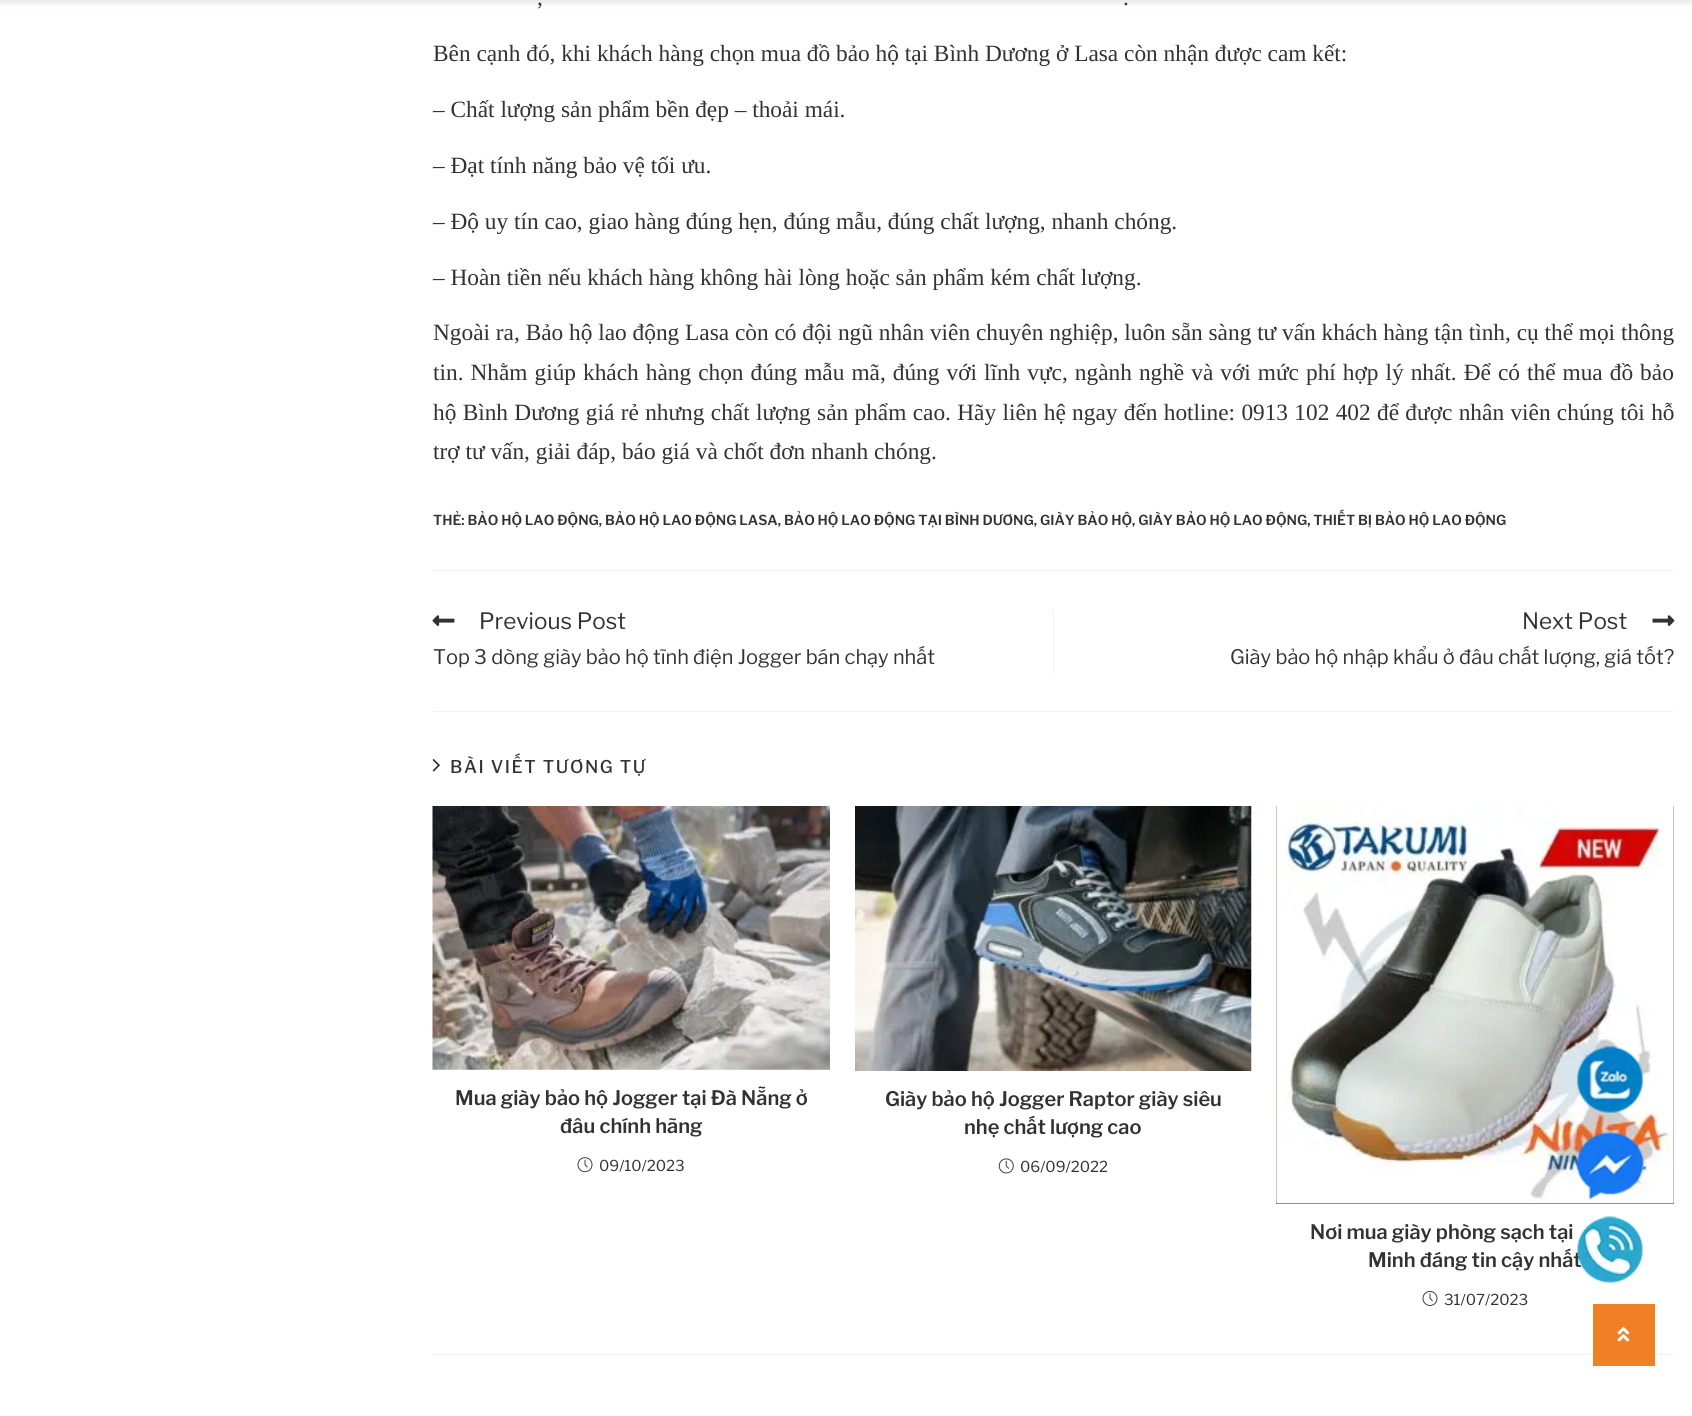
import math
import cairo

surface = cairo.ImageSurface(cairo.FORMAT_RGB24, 1692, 1416)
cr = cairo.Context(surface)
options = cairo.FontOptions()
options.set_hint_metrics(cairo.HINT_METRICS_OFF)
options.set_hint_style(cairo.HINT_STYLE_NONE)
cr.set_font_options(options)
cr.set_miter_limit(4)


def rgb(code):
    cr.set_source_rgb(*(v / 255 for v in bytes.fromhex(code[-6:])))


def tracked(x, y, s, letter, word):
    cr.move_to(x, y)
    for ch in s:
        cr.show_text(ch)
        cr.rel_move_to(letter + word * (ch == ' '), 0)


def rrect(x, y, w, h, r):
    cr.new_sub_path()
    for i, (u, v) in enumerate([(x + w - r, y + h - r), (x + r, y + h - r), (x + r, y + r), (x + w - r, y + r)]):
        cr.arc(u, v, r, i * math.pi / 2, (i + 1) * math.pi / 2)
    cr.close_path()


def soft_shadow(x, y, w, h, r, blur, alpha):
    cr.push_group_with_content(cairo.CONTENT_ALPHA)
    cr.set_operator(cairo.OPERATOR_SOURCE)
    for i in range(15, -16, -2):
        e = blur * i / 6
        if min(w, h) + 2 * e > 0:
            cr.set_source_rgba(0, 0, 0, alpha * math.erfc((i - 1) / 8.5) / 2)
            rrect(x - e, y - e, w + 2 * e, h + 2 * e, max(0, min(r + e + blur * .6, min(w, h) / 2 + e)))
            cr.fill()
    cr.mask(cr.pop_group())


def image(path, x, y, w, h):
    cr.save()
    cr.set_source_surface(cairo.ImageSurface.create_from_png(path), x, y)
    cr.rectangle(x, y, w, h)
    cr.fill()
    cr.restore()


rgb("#ffffff")
cr.paint()
rgb("#000000")
soft_shadow(0, -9, 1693, 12, 0, 3, 0.1)
rgb("#f1f1f1")
cr.rectangle(433, 570, 1241, 1)
cr.fill()
cr.rectangle(1053, 609, 1, 65)
cr.fill()
image("img/1.png", 432, 615, 23, 11)
image("img/2.png", 1652, 615, 23, 11)
cr.rectangle(433, 711, 1241, 1)
cr.fill()
image("img/3.png", 432, 759, 8, 13)
image("img/4.png", 432, 806, 398, 264)
image("img/5.png", 577, 1157, 16, 16)
image("img/6.png", 855, 806, 397, 265)
image("img/7.png", 998, 1158, 16, 16)
rgb("#222222")
cr.rectangle(1276, 806, 398, 398)
cr.fill()
image("img/8.png", 1276, 806, 398, 398)
image("img/9.png", 1422, 1291, 16, 15)
rgb("#f1f1f1")
cr.rectangle(433, 1354, 1241, 1)
cr.fill()
image("img/10.png", 1576, 1045, 68, 68)
image("img/11.png", 1575, 1131, 70, 70)
rgb("#ef8026")
cr.rectangle(1593, 1304, 62, 62)
cr.fill()
image("img/13.png", 1617, 1327, 13, 15)
cr.select_font_face("Liberation Serif")
cr.set_font_size(23.33)
rgb("#323232")
for x, y, s in [
    (537, 5, ","),
    (1123, 5, "."),
    (433, 61, "Bên cạnh đó, khi khách hàng chọn mua đồ bảo hộ tại Bình Dương ở Lasa còn nhận được cam kết:"),
    (433, 117, "– Chất lượng sản phẩm bền đẹp – thoải mái."),
    (433, 173, "– Đạt tính năng bảo vệ tối ưu."),
    (433, 229, "– Độ uy tín cao, giao hàng đúng hẹn, đúng mẫu, đúng chất lượng, nhanh chóng."),
    (433, 285, "– Hoàn tiền nếu khách hàng không hài lòng hoặc sản phẩm kém chất lượng."),
    (433, 340, "Ngoài ra, Bảo hộ lao động Lasa còn có đội ngũ nhân viên chuyên nghiệp, luôn sẵn sàng tư vấn khách hàng tận tình, cụ thể mọi thông"),
]:
    cr.move_to(x, y)
    cr.show_text(s)
tracked(433, 380, "tin. Nhằm giúp khách hàng chọn đúng mẫu mã, đúng với lĩnh vực, ngành nghề và với mức phí hợp lý nhất. Để có thể mua đồ bảo", 0, 1.2)
tracked(433, 420, "hộ Bình Dương giá rẻ nhưng chất lượng sản phẩm cao. Hãy liên hệ ngay đến hotline: 0913 102 402 để được nhân viên chúng tôi hỗ", 0, 0.5)
cr.move_to(433, 459)
cr.show_text("trợ tư vấn, giải đáp, báo giá và chốt đơn nhanh chóng.")
cr.select_font_face("Libre Franklin SemiBold")
cr.set_font_size(13.75)
cr.move_to(433, 525)
cr.show_text("THẺ: BẢO HỘ LAO ĐỘNG, BẢO HỘ LAO ĐỘNG LASA, BẢO HỘ LAO ĐỘNG TẠI BÌNH DƯƠNG, GIÀY BẢO HỘ, GIÀY BẢO HỘ LAO ĐỘNG, THIẾT BỊ BẢO HỘ LAO ĐỘNG")
cr.select_font_face("Libre Franklin")
cr.set_font_size(22.5)
cr.move_to(479, 629)
cr.show_text("Previous Post")
cr.set_font_size(20)
cr.move_to(433, 664)
cr.show_text("Top 3 dòng giày bảo hộ tĩnh điện Jogger bán chạy nhất")
cr.set_font_size(22.5)
cr.move_to(1522, 629)
cr.show_text("Next Post")
cr.set_font_size(20)
cr.move_to(1230, 664)
cr.show_text("Giày bảo hộ nhập khẩu ở đâu chất lượng, giá tốt?")
cr.select_font_face("Libre Franklin Medium")
cr.set_font_size(17.5)
tracked(450, 773, "BÀI VIẾT TƯƠNG TỰ", 1.6, 0)
cr.select_font_face("Libre Franklin SemiBold")
cr.set_font_size(20)
cr.move_to(455, 1105)
cr.show_text("Mua giày bảo hộ Jogger tại Đà Nẵng ở")
cr.move_to(560, 1133)
cr.show_text("đâu chính hãng")
cr.select_font_face("Libre Franklin")
cr.set_font_size(15)
cr.move_to(599, 1171)
cr.show_text("09/10/2023")
cr.select_font_face("Libre Franklin SemiBold")
cr.set_font_size(20)
cr.move_to(885, 1106)
cr.show_text("Giày bảo hộ Jogger Raptor giày siêu")
cr.move_to(964, 1134)
cr.show_text("nhẹ chất lượng cao")
cr.select_font_face("Libre Franklin")
cr.set_font_size(15)
cr.move_to(1020, 1172)
cr.show_text("06/09/2022")
cr.select_font_face("Libre Franklin SemiBold")
cr.set_font_size(20)
cr.move_to(1310, 1239)
cr.show_text("Nơi mua giày phòng sạch tại")
cr.move_to(1368, 1267)
cr.show_text("Minh đáng tin cậy nhất")
cr.select_font_face("Libre Franklin")
cr.set_font_size(15)
cr.move_to(1444, 1305)
cr.show_text("31/07/2023")
image("img/12.png", 1577, 1216, 66, 67)
surface.write_to_png("page.png")
